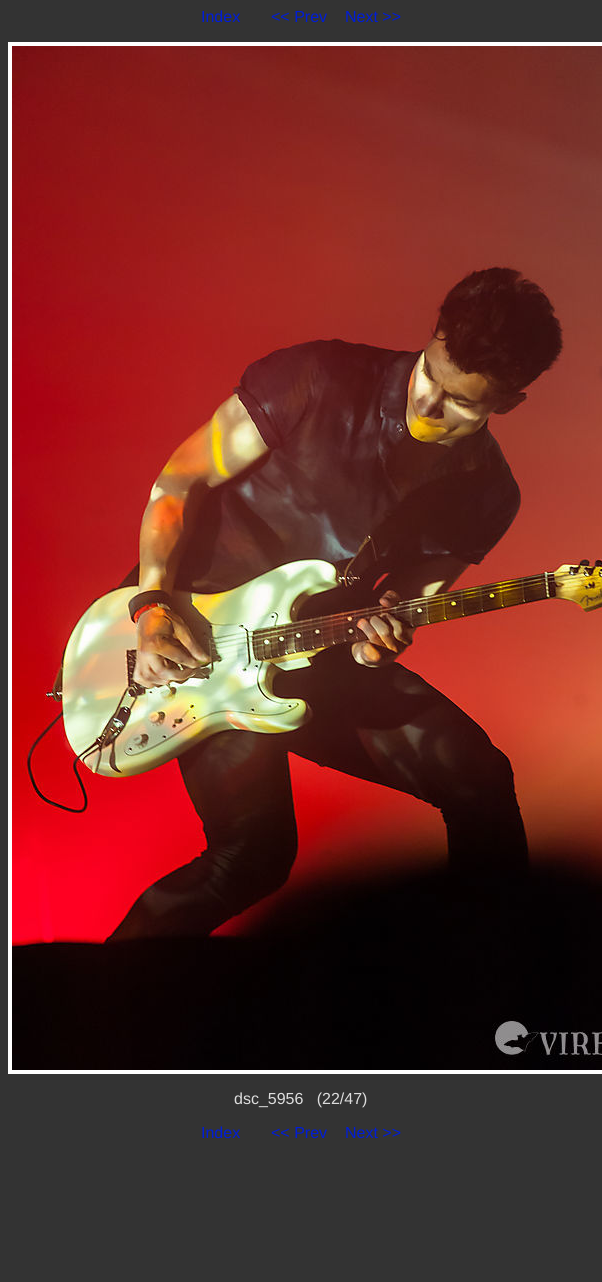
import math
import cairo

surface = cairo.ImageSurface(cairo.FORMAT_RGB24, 602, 1282)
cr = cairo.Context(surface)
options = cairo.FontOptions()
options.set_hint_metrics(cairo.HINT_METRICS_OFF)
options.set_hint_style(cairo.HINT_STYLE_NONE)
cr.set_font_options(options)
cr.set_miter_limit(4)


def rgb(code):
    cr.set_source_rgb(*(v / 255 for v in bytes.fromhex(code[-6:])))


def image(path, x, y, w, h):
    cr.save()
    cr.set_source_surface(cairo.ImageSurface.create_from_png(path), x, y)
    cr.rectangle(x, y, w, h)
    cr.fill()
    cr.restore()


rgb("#333333")
cr.paint()
rgb("#ffffff")
cr.rectangle(8, 42, 594, 1032)
cr.fill()
image("img/1.png", 12, 46, 590, 1024)
cr.select_font_face("Liberation Sans")
cr.set_font_size(16)
rgb("#001dd9")
for x, y, s in [
    (201, 22, "Index"),
    (271, 22, "<< Prev"),
    (345, 22, "Next >>"),
]:
    cr.move_to(x, y)
    cr.show_text(s)
rgb("#dddddd")
cr.move_to(234, 1104)
cr.show_text("dsc_5956   (22/47)")
rgb("#001dd9")
for x, y, s in [
    (201, 1138, "Index"),
    (271, 1138, "<< Prev"),
    (345, 1138, "Next >>"),
]:
    cr.move_to(x, y)
    cr.show_text(s)
surface.write_to_png("page.png")
